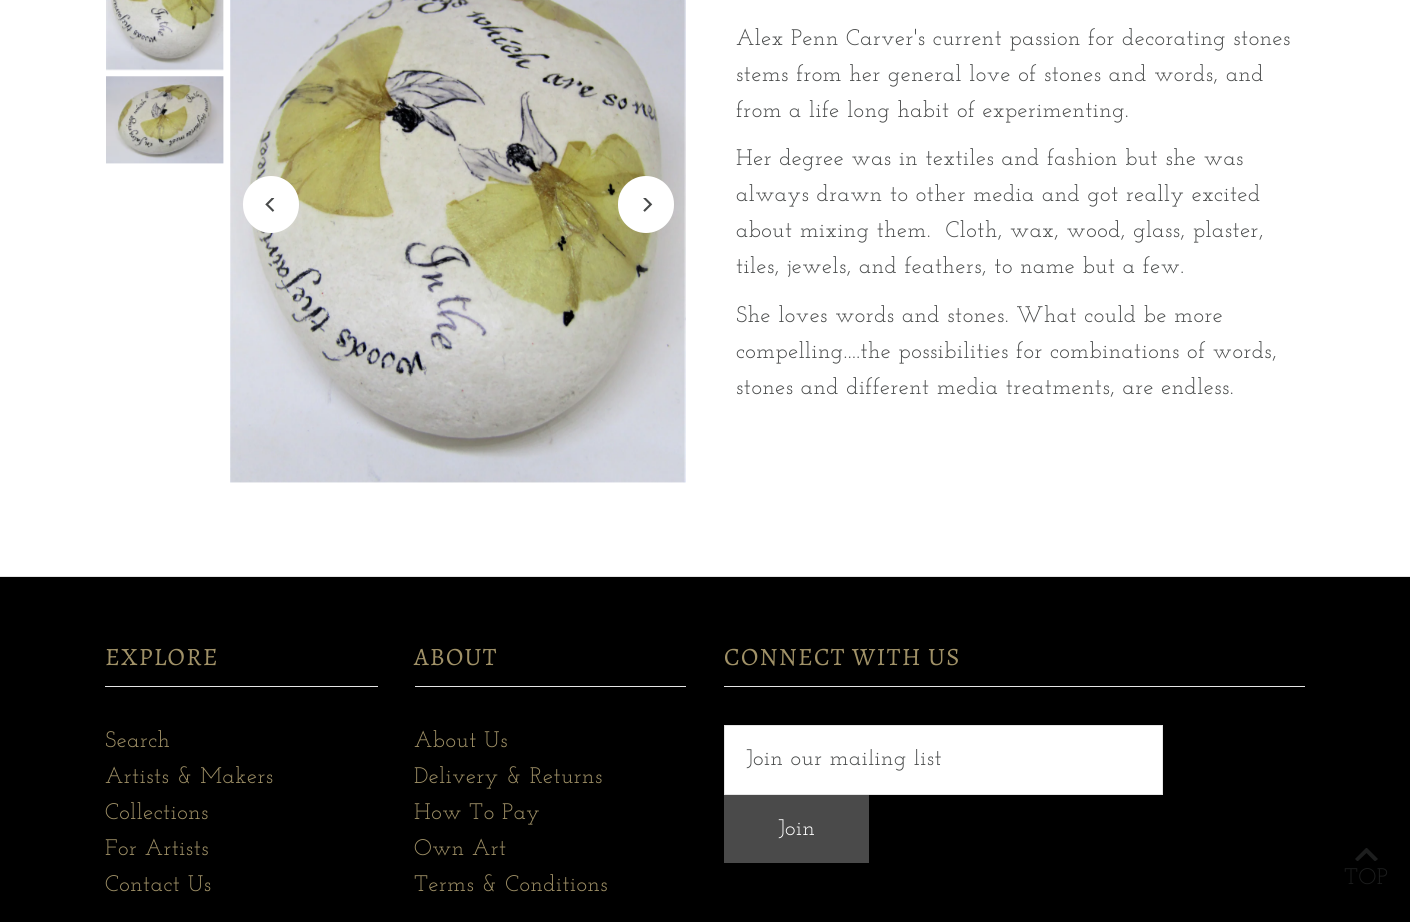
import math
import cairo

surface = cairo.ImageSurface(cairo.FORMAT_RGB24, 1410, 922)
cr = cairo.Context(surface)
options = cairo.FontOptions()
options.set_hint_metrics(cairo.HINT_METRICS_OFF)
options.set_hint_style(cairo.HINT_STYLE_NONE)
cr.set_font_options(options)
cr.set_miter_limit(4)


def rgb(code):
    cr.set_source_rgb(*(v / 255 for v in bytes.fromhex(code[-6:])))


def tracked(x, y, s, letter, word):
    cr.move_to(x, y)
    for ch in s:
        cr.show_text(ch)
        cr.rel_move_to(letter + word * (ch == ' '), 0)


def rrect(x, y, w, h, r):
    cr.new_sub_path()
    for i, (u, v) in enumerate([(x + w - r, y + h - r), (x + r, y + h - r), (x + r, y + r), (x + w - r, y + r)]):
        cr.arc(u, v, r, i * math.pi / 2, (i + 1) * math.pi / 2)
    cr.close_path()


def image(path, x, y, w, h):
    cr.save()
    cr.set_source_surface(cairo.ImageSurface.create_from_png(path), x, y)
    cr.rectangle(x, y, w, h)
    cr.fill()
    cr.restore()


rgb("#ffffff")
cr.paint()
image("img/1.png", 106, 0, 118, 71)
image("img/2.png", 106, 76, 118, 88)
image("img/3.png", 230, 0, 456, 483)
rgb("#ffffff")
rrect(243, 176, 56, 57, 28)
cr.fill()
image("img/4.png", 265, 198, 10, 14)
rrect(618, 176, 56, 57, 28)
cr.fill()
image("img/5.png", 643, 198, 10, 14)
for x, y, w, h, color in [
    (0, 577, 1410, 345, "#000000"),
    (0, 576, 1410, 1, "#e5e5e5"),
    (105, 686, 273, 1, "#e5e5e5"),
    (415, 686, 271, 1, "#e5e5e5"),
    (724, 686, 581, 1, "#e5e5e5"),
]:
    rgb(color)
    cr.rectangle(x, y, w, h)
    cr.fill()
rgb("#ffffff")
cr.rectangle(724.5, 725.5, 438, 69)
cr.fill_preserve()
rgb("#e5e5e5")
cr.set_line_width(1)
cr.stroke()
rgb("#4a4a4a")
cr.rectangle(724, 795, 145, 68)
cr.fill()
cr.save()
cr.rectangle(1355, 848, 23, 13)
cr.clip()
rgb("#1d1e1e")
cr.new_path()
cr.move_to(1366.5, 847.5)
cr.line_to(1355, 859)
cr.line_to(1357.5, 861.5)
cr.line_to(1366.5, 853)
cr.line_to(1375, 861.5)
cr.line_to(1378, 859)
cr.close_path()
cr.fill()
cr.restore()
cr.select_font_face("Josefin Slab")
cr.set_font_size(22.5)
rgb("#484a4a")
for x, y, s in [
    (736, 45, "Alex Penn Carver's current passion for decorating stones"),
    (736, 81, "stems from her general love of stones and words, and"),
    (736, 117, "from a life long habit of experimenting."),
    (736, 165, "Her degree was in textiles and fashion but she was"),
    (736, 201, "always drawn to other media and got really excited"),
    (736, 237, "about mixing them.  Cloth, wax, wood, glass, plaster,"),
    (736, 273, "tiles, jewels, and feathers, to name but a few."),
    (736, 322, "She loves words and stones. What could be more"),
    (736, 358, "compelling....the possibilities for combinations of words,"),
    (736, 394, "stones and different media treatments, are endless."),
]:
    tracked(x, y, s, 0.55, 0)
cr.select_font_face("Alegreya")
cr.set_font_size(25)
rgb("#a09167")
tracked(105, 665, "EXPLORE", 1.25, 0)
cr.select_font_face("Josefin Slab")
cr.set_font_size(22.5)
for x, y, s in [
    (105, 747, "Search"),
    (105, 783, "Artists & Makers"),
    (105, 819, "Collections"),
    (105, 855, "For Artists"),
    (105, 891, "Contact Us"),
]:
    tracked(x, y, s, 0.55, 0)
cr.select_font_face("Alegreya")
cr.set_font_size(25)
tracked(414, 665, "ABOUT", 1.25, 0)
cr.select_font_face("Josefin Slab")
cr.set_font_size(22.5)
for x, y, s in [
    (414, 747, "About Us"),
    (414, 783, "Delivery & Returns"),
    (414, 819, "How To Pay"),
    (414, 855, "Own Art"),
    (414, 891, "Terms & Conditions"),
]:
    tracked(x, y, s, 0.55, 0)
cr.select_font_face("Alegreya")
cr.set_font_size(25)
tracked(724, 665, "CONNECT WITH US", 1.25, 0)
cr.save()
cr.rectangle(725, 749, 436, 22)
cr.clip()
cr.select_font_face("Josefin Slab")
cr.set_font_size(22.5)
rgb("#484a4a")
tracked(746, 765, "Join our mailing list", 0.55, 0)
cr.restore()
cr.select_font_face("Josefin Slab")
cr.set_font_size(22.5)
rgb("#ffffff")
tracked(778, 835, "Join", 0.55, 0)
rgb("#1d1e1e")
tracked(1344, 884, "TOP", 0.55, 0)
surface.write_to_png("page.png")
